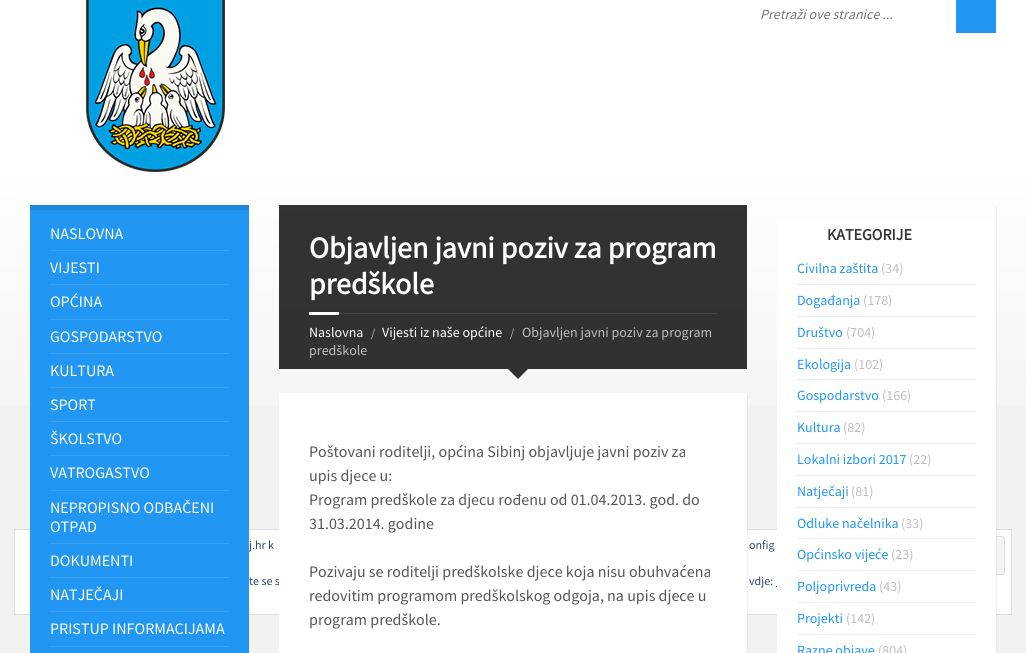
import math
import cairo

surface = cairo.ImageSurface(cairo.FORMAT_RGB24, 1026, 653)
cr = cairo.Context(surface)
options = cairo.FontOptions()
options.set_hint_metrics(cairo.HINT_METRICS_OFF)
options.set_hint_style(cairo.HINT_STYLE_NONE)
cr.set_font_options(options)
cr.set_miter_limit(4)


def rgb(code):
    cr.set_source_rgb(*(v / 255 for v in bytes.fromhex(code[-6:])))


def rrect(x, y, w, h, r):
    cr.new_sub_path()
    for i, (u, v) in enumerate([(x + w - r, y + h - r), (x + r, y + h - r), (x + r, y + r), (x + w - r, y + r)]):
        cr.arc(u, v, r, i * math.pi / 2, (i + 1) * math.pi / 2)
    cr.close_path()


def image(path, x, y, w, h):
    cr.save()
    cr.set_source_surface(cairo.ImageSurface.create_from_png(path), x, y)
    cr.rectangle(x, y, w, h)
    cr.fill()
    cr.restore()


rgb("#f2f2f2")
cr.paint()
rgb("#ffffff")
cr.rectangle(0, 0, 1026, 163)
cr.fill()
gradient = cairo.LinearGradient(513, 163, 513, 463)
gradient.add_color_stop_rgba(0, 1, 1, 1, 1)
gradient.add_color_stop_rgba(1, 0.949, 0.949, 0.949, 1)
cr.set_source(gradient)
cr.rectangle(0, 163, 1026, 242)
cr.fill()
gradient = cairo.LinearGradient(513, 163, 513, 463)
gradient.add_color_stop_rgba(0, 0.2, 0.2, 0.2, 1)
gradient.add_color_stop_rgba(1, 0.188, 0.188, 0.188, 1)
cr.set_source(gradient)
cr.rectangle(279, 205, 468, 164)
cr.fill()
image("img/1.png", 86, 0, 139, 172)
for x, y, w, h, color in [
    (956, 0, 40, 33, "#2196f3"),
    (30, 205, 219, 5, "#1e87db"),
    (339, 313, 378, 1, "#464646"),
    (309, 312, 30, 3, "#ffffff"),
]:
    rgb(color)
    cr.rectangle(x, y, w, h)
    cr.fill()
rgb("#313131")
cr.new_path()
cr.move_to(508, 369)
cr.line_to(528, 369)
cr.line_to(518, 379)
cr.close_path()
cr.fill()
rgb("#ffffff")
cr.rectangle(14.5, 529.5, 997, 85)
cr.fill_preserve()
rgb("#dedede")
cr.set_line_width(1)
cr.stroke()
cr.set_source_rgba(0, 0, 0, 0.05)
cr.new_path()
cr.move_to(280, 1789)
cr.line_to(280, 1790)
cr.line_to(748, 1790)
cr.line_to(748, 394)
cr.line_to(747, 394)
cr.line_to(747, 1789)
cr.close_path()
cr.fill()
rgb("#f3f3f3")
rrect(883.5, 536.5, 121, 38, 2.5)
cr.fill_preserve()
rgb("#dedede")
cr.stroke()
cr.set_source_rgba(0, 0, 0, 0.05)
cr.new_path()
cr.move_to(778, 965)
cr.line_to(778, 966)
cr.line_to(997, 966)
cr.line_to(997, 206)
cr.line_to(996, 206)
cr.line_to(996, 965)
cr.close_path()
cr.fill()
for x, y, w, h, color in [
    (777, 221, 219, 432, "#ffffff"),
    (797, 284, 179, 1, "#f0f0f0"),
    (797, 316, 179, 1, "#f0f0f0"),
    (797, 348, 179, 1, "#f0f0f0"),
    (797, 379, 179, 1, "#f0f0f0"),
    (797, 411, 179, 1, "#f0f0f0"),
    (797, 443, 179, 1, "#f0f0f0"),
    (797, 475, 179, 1, "#f0f0f0"),
    (797, 507, 179, 1, "#f0f0f0"),
    (797, 538, 179, 1, "#f0f0f0"),
    (797, 570, 179, 1, "#f0f0f0"),
    (797, 602, 179, 1, "#f0f0f0"),
    (797, 634, 179, 1, "#f0f0f0"),
    (776, 586, 1, 1, "#2e4467"),
]:
    rgb(color)
    cr.rectangle(x, y, w, h)
    cr.fill()
cr.select_font_face("Source Sans Pro", cairo.FONT_SLANT_ITALIC)
cr.set_font_size(14)
rgb("#757575")
cr.move_to(760, 19)
cr.show_text("Pretraži ove stranice ...")
cr.select_font_face("Source Sans Pro", cairo.FONT_SLANT_NORMAL, cairo.FONT_WEIGHT_BOLD)
cr.set_font_size(30)
rgb("#ffffff")
cr.move_to(309, 258)
cr.show_text("Objavljen javni poziv za program")
cr.move_to(309, 294)
cr.show_text("predškole")
cr.select_font_face("Source Sans Pro")
cr.set_font_size(14)
cr.move_to(309, 337)
cr.show_text("Naslovna")
cr.set_font_size(12)
rgb("#bebebe")
cr.move_to(371, 337)
cr.show_text("/")
cr.set_font_size(14)
rgb("#ffffff")
cr.move_to(382, 337)
cr.show_text("Vijesti iz naše općine")
cr.set_font_size(12)
rgb("#bebebe")
cr.move_to(510, 337)
cr.show_text("/")
cr.set_font_size(14)
cr.move_to(522, 337)
cr.show_text("Objavljen javni poziv za program")
cr.move_to(309, 355)
cr.show_text("predškole")
cr.select_font_face("Source Sans Pro", cairo.FONT_SLANT_NORMAL, cairo.FONT_WEIGHT_BOLD)
cr.set_font_size(16)
rgb("#333333")
cr.move_to(827, 240)
cr.show_text("KATEGORIJE")
cr.select_font_face("Source Sans Pro")
cr.set_font_size(14)
rgb("#2196f3")
cr.move_to(797, 273)
cr.show_text("Civilna zaštita")
rgb("#bebebe")
cr.move_to(881, 273)
cr.show_text("(34)")
rgb("#2196f3")
cr.move_to(797, 305)
cr.show_text("Događanja")
rgb("#bebebe")
cr.move_to(863, 305)
cr.show_text("(178)")
rgb("#2196f3")
cr.move_to(797, 337)
cr.show_text("Društvo")
rgb("#bebebe")
cr.move_to(846, 337)
cr.show_text("(704)")
rgb("#2196f3")
cr.move_to(797, 369)
cr.show_text("Ekologija")
rgb("#bebebe")
cr.move_to(854, 369)
cr.show_text("(102)")
rgb("#2196f3")
cr.move_to(797, 400)
cr.show_text("Gospodarstvo")
rgb("#bebebe")
cr.move_to(882, 400)
cr.show_text("(166)")
rgb("#2196f3")
cr.move_to(797, 432)
cr.show_text("Kultura")
rgb("#bebebe")
cr.move_to(843, 432)
cr.show_text("(82)")
rgb("#2196f3")
cr.move_to(797, 464)
cr.show_text("Lokalni izbori 2017")
rgb("#bebebe")
cr.move_to(909, 464)
cr.show_text("(22)")
rgb("#2196f3")
cr.move_to(797, 496)
cr.show_text("Natječaji")
rgb("#bebebe")
cr.move_to(851, 496)
cr.show_text("(81)")
rgb("#2196f3")
cr.move_to(797, 528)
cr.show_text("Odluke načelnika")
rgb("#bebebe")
cr.move_to(901, 528)
cr.show_text("(33)")
rgb("#2196f3")
cr.move_to(797, 559)
cr.show_text("Općinsko vijeće")
rgb("#bebebe")
cr.move_to(891, 559)
cr.show_text("(23)")
rgb("#2196f3")
cr.move_to(797, 591)
cr.show_text("Poljoprivreda")
rgb("#bebebe")
cr.move_to(879, 591)
cr.show_text("(43)")
rgb("#2196f3")
cr.move_to(797, 623)
cr.show_text("Projekti")
rgb("#bebebe")
cr.move_to(846, 623)
cr.show_text("(142)")
rgb("#2196f3")
cr.move_to(797, 655)
cr.show_text("Razne objave")
rgb("#bebebe")
cr.move_to(878, 655)
cr.show_text("(804)")
cr.set_font_size(12)
rgb("#2e4467")
for x, y, s in [
    (249, 549, "j.hr k"),
    (749, 549, "onfig"),
    (249, 585, "te se s"),
]:
    cr.move_to(x, y)
    cr.show_text(s)
rgb("#2196f3")
cr.rectangle(30, 210, 219, 443)
cr.fill()
rgb("#37a1f4")
cr.rectangle(50, 646, 179, 1)
cr.fill()
cr.set_font_size(16)
rgb("#ffffff")
cr.move_to(50, 634)
cr.show_text("PRISTUP INFORMACIJAMA")
rgb("#37a1f4")
cr.rectangle(50, 611, 179, 1)
cr.fill()
rgb("#ffffff")
cr.move_to(50, 600)
cr.show_text("NATJEČAJI")
rgb("#37a1f4")
cr.rectangle(50, 577, 179, 1)
cr.fill()
rgb("#ffffff")
cr.move_to(50, 566)
cr.show_text("DOKUMENTI")
rgb("#37a1f4")
cr.rectangle(50, 543, 179, 1)
cr.fill()
rgb("#ffffff")
cr.move_to(50, 532)
cr.show_text("OTPAD")
cr.move_to(50, 513)
cr.show_text("NEPROPISNO ODBAČENI")
rgb("#37a1f4")
cr.rectangle(50, 490, 179, 1)
cr.fill()
rgb("#ffffff")
cr.move_to(50, 478)
cr.show_text("VATROGASTVO")
rgb("#37a1f4")
cr.rectangle(50, 455, 179, 1)
cr.fill()
rgb("#ffffff")
cr.move_to(50, 444)
cr.show_text("ŠKOLSTVO")
rgb("#37a1f4")
cr.rectangle(50, 421, 179, 1)
cr.fill()
rgb("#ffffff")
cr.move_to(50, 410)
cr.show_text("SPORT")
rgb("#37a1f4")
cr.rectangle(50, 387, 179, 1)
cr.fill()
rgb("#ffffff")
cr.move_to(50, 376)
cr.show_text("KULTURA")
rgb("#37a1f4")
cr.rectangle(50, 353, 179, 1)
cr.fill()
rgb("#ffffff")
cr.move_to(50, 342)
cr.show_text("GOSPODARSTVO")
rgb("#37a1f4")
cr.rectangle(50, 319, 179, 1)
cr.fill()
rgb("#ffffff")
cr.move_to(50, 307)
cr.show_text("OPĆINA")
rgb("#37a1f4")
cr.rectangle(50, 284, 179, 1)
cr.fill()
rgb("#ffffff")
cr.move_to(50, 273)
cr.show_text("VIJESTI")
rgb("#37a1f4")
cr.rectangle(50, 250, 179, 1)
cr.fill()
rgb("#ffffff")
cr.move_to(50, 239)
cr.show_text("NASLOVNA")
cr.rectangle(279, 393, 468, 260)
cr.fill()
rgb("#565656")
for x, y, s in [
    (309, 625, "program predškole."),
    (309, 601, "redovitim programom predškolskog odgoja, na upis djece u"),
    (309, 577, "Pozivaju se roditelji predškolske djece koja nisu obuhvaćena"),
    (309, 529, "31.03.2014. godine"),
    (309, 505, "Program predškole za djecu rođenu od 01.04.2013. god. do"),
    (309, 481, "upis djece u:"),
    (309, 457, "Poštovani roditelji, općina Sibinj objavljuje javni poziv za"),
]:
    cr.move_to(x, y)
    cr.show_text(s)
cr.set_font_size(12)
rgb("#2e4467")
cr.move_to(749, 585)
cr.show_text("vdje:")
surface.write_to_png("page.png")
